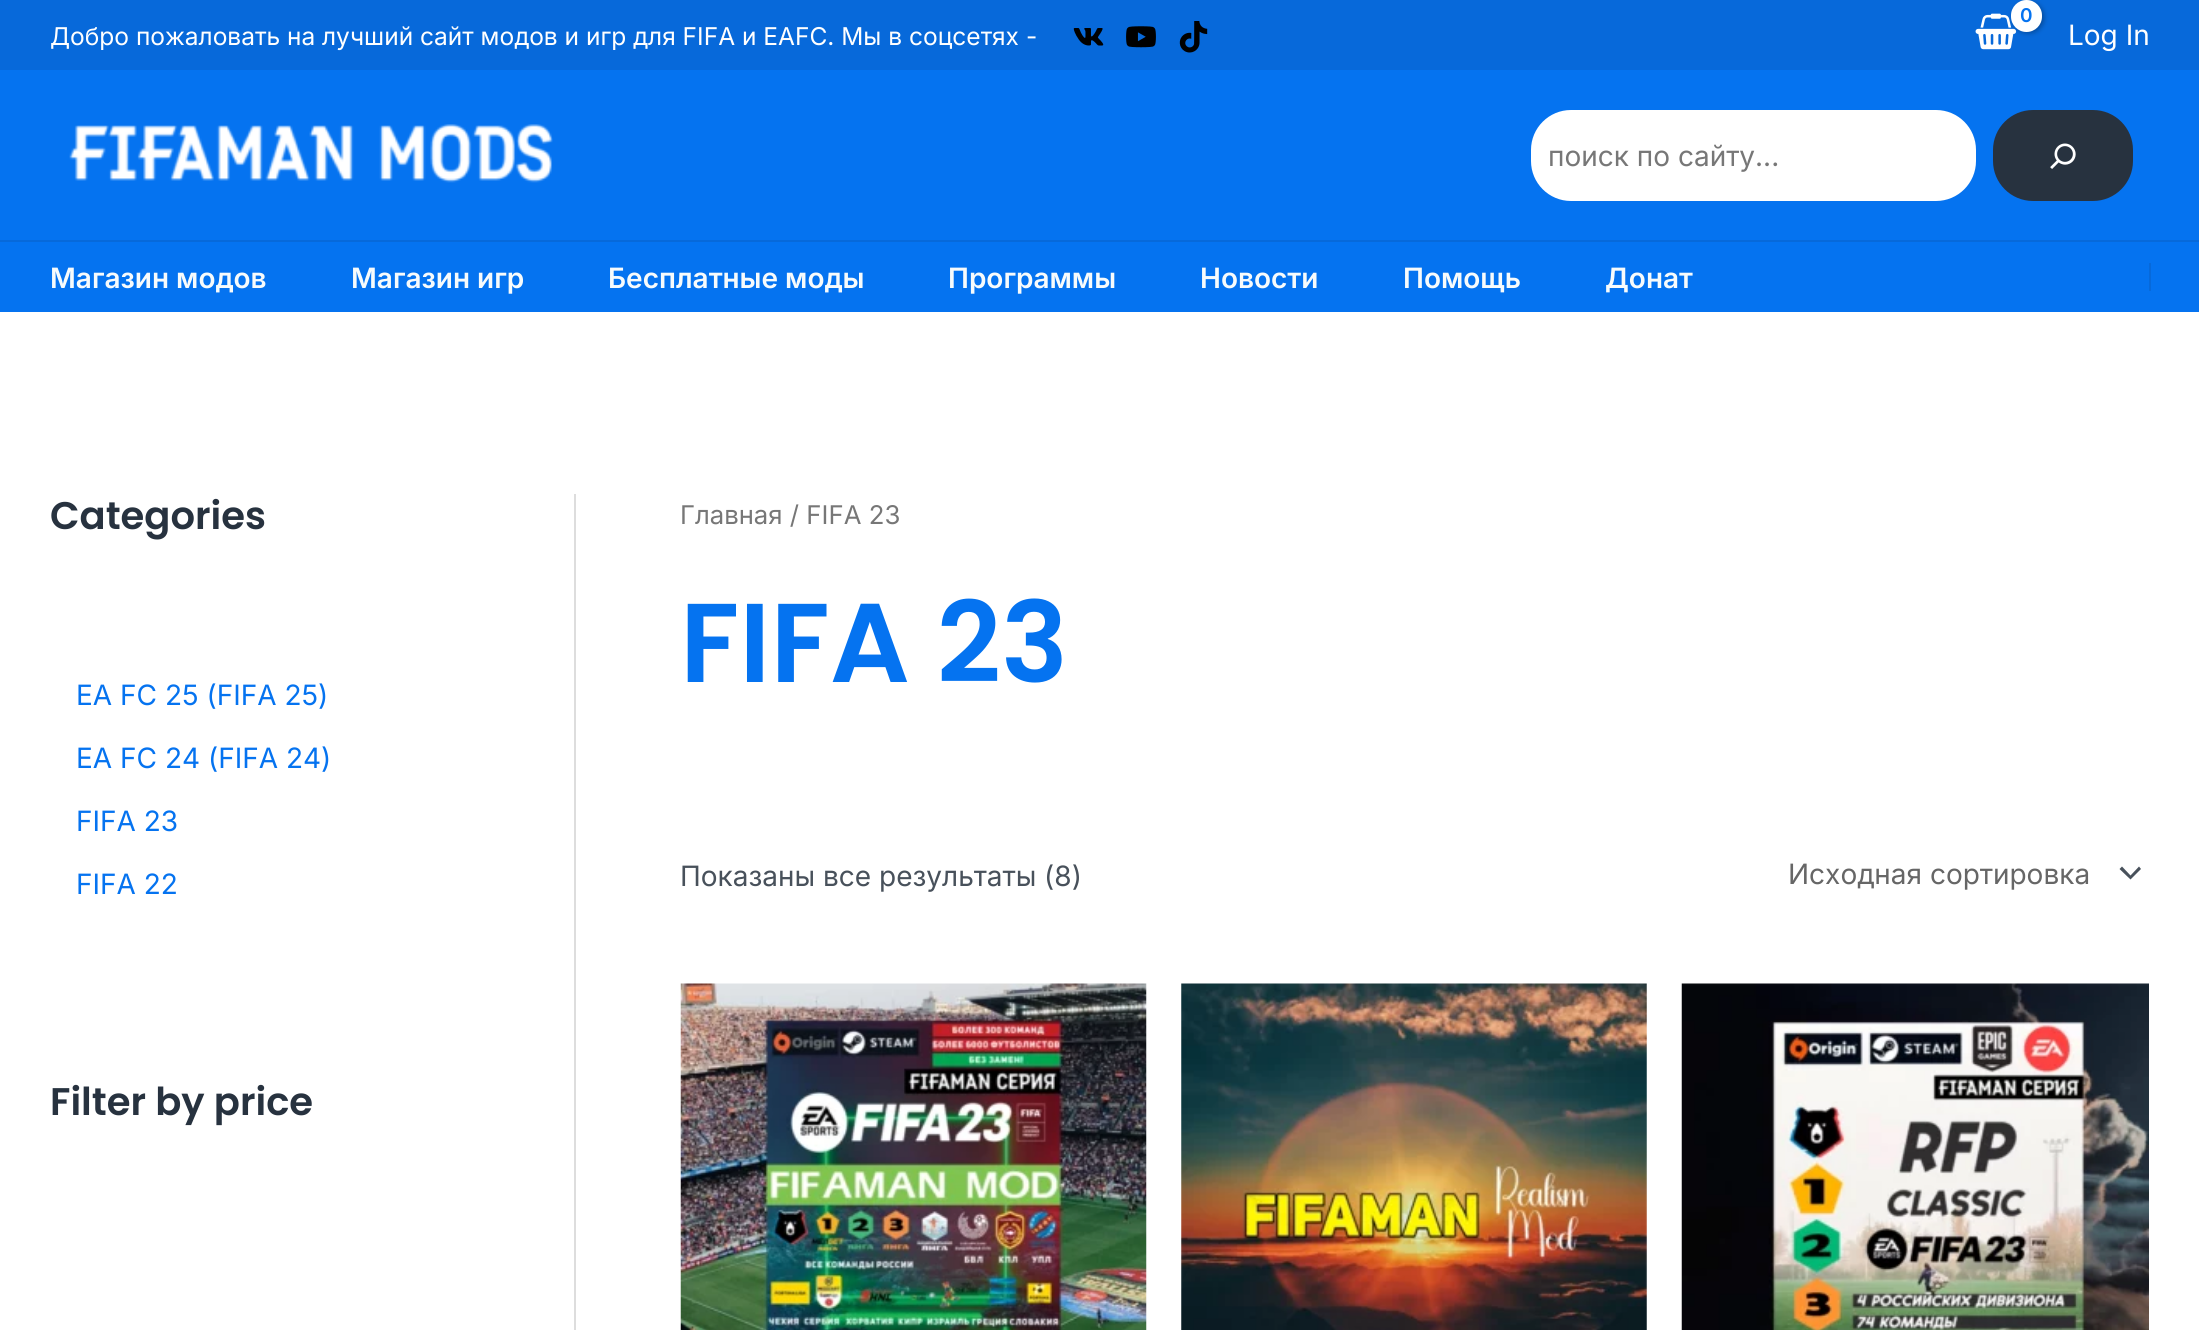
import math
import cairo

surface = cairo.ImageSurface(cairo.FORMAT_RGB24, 2199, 1330)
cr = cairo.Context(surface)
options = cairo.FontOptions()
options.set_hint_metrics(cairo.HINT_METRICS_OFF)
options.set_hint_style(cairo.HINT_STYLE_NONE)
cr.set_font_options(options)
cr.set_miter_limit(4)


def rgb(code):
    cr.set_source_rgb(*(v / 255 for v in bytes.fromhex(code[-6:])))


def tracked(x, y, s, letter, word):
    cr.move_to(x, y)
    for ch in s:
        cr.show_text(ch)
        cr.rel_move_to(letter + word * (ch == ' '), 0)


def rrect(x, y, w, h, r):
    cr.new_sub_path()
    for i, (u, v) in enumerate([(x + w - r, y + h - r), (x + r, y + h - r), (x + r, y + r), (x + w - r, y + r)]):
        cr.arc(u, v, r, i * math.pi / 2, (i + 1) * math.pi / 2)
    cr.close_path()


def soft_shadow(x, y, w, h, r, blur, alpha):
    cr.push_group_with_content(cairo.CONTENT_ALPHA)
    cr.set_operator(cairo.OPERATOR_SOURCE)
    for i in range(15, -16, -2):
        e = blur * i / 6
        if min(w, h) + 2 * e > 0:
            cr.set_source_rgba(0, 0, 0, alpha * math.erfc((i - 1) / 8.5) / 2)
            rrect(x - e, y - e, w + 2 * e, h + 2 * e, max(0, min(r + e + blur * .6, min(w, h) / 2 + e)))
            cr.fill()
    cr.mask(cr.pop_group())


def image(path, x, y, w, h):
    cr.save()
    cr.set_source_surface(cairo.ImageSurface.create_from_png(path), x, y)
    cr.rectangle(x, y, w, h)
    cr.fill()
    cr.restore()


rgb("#ffffff")
cr.paint()
rgb("#0769da")
cr.rectangle(0, 0, 2199, 70)
cr.fill()
image("img/1.png", 1073, 28, 31, 18)
image("img/2.png", 1126, 26, 30, 22)
image("img/3.png", 1179, 21, 29, 32)
image("img/4.png", 1975, 13, 42, 37)
rgb("#000000")
soft_shadow(2013, 2, 31, 31, 15.5, 2.5, 0.3)
rgb("#ffffff")
rrect(2011, 0, 31, 32, 15.5)
cr.fill()
rgb("#0573f0")
cr.rectangle(0, 70, 2199, 170)
cr.fill()
rgb("#0769da")
cr.rectangle(0, 240, 2199, 2)
cr.fill()
image("img/5.png", 69, 124, 484, 59)
rgb("#ffffff")
rrect(1531, 110, 445, 91, 40)
cr.fill()
rgb("#27323f")
rrect(1993, 110, 140, 91, 40)
cr.fill()
image("img/6.png", 2050, 143, 26, 26)
for x, y, w, h, color in [
    (0, 242, 2199, 70, "#0573f0"),
    (2149, 263, 2, 28, "#0769da"),
    (574, 494, 2, 836, "#dddddd"),
]:
    rgb(color)
    cr.rectangle(x, y, w, h)
    cr.fill()
rgb("#48515b")
cr.new_path()
cr.move_to(2119.5, 869)
cr.line_to(2130.5, 879.5)
cr.line_to(2141, 869)
cr.line_to(2139, 866.5)
cr.line_to(2130.5, 875.5)
cr.line_to(2122, 866.5)
cr.close_path()
cr.fill()
image("img/7.png", 680, 983, 467, 347)
image("img/8.png", 1181, 983, 466, 347)
image("img/9.png", 1681, 983, 468, 347)
cr.select_font_face("Inter")
cr.set_font_size(24.5)
rgb("#ffffff")
cr.move_to(50, 45)
cr.show_text("Добро пожаловать на лучший сайт модов и игр для FIFA и EAFC. Мы в соцсетях -")
cr.select_font_face("Inter SemiBold")
cr.set_font_size(19)
rgb("#0573f0")
tracked(2020, 22, "0", -1, 0)
cr.select_font_face("Inter")
cr.set_font_size(28)
rgb("#ffffff")
cr.move_to(2068, 45)
cr.show_text("Log In")
rgb("#777777")
cr.move_to(1548, 166)
cr.show_text("поиск по сайту...")
cr.select_font_face("Inter SemiBold")
rgb("#f7fbfc")
for x, y, s in [
    (50, 288, "Магазин модов"),
    (351, 288, "Магазин игр"),
    (608, 288, "Бесплатные моды"),
    (948, 288, "Программы"),
    (1200, 288, "Новости"),
    (1403, 288, "Помощь"),
    (1605, 288, "Донат"),
]:
    cr.move_to(x, y)
    cr.show_text(s)
cr.select_font_face("Poppins SemiBold")
cr.set_font_size(38.5)
rgb("#27323f")
cr.move_to(50, 529)
cr.show_text("Categories")
cr.select_font_face("Inter")
cr.set_font_size(28)
rgb("#0573f0")
for x, y, s in [
    (76, 705, "EA FC 25 (FIFA 25)"),
    (76, 768, "EA FC 24 (FIFA 24)"),
    (76, 831, "FIFA 23"),
    (76, 894, "FIFA 22"),
]:
    cr.move_to(x, y)
    cr.show_text(s)
cr.select_font_face("Poppins SemiBold")
cr.set_font_size(38.5)
rgb("#27323f")
cr.move_to(50, 1115)
cr.show_text("Filter by price")
cr.select_font_face("Inter")
cr.set_font_size(25.75)
rgb("#777777")
cr.move_to(680, 524)
cr.show_text("Главная / FIFA 23")
cr.select_font_face("Poppins SemiBold")
cr.set_font_size(112)
rgb("#0573f0")
cr.move_to(680, 682)
cr.show_text("FIFA 23")
cr.select_font_face("Inter")
cr.set_font_size(28)
rgb("#48515b")
cr.move_to(680, 886)
cr.show_text("Показаны все результаты (8)")
rgb("#666666")
cr.move_to(1788, 884)
cr.show_text("Исходная сортировка")
surface.write_to_png("page.png")
